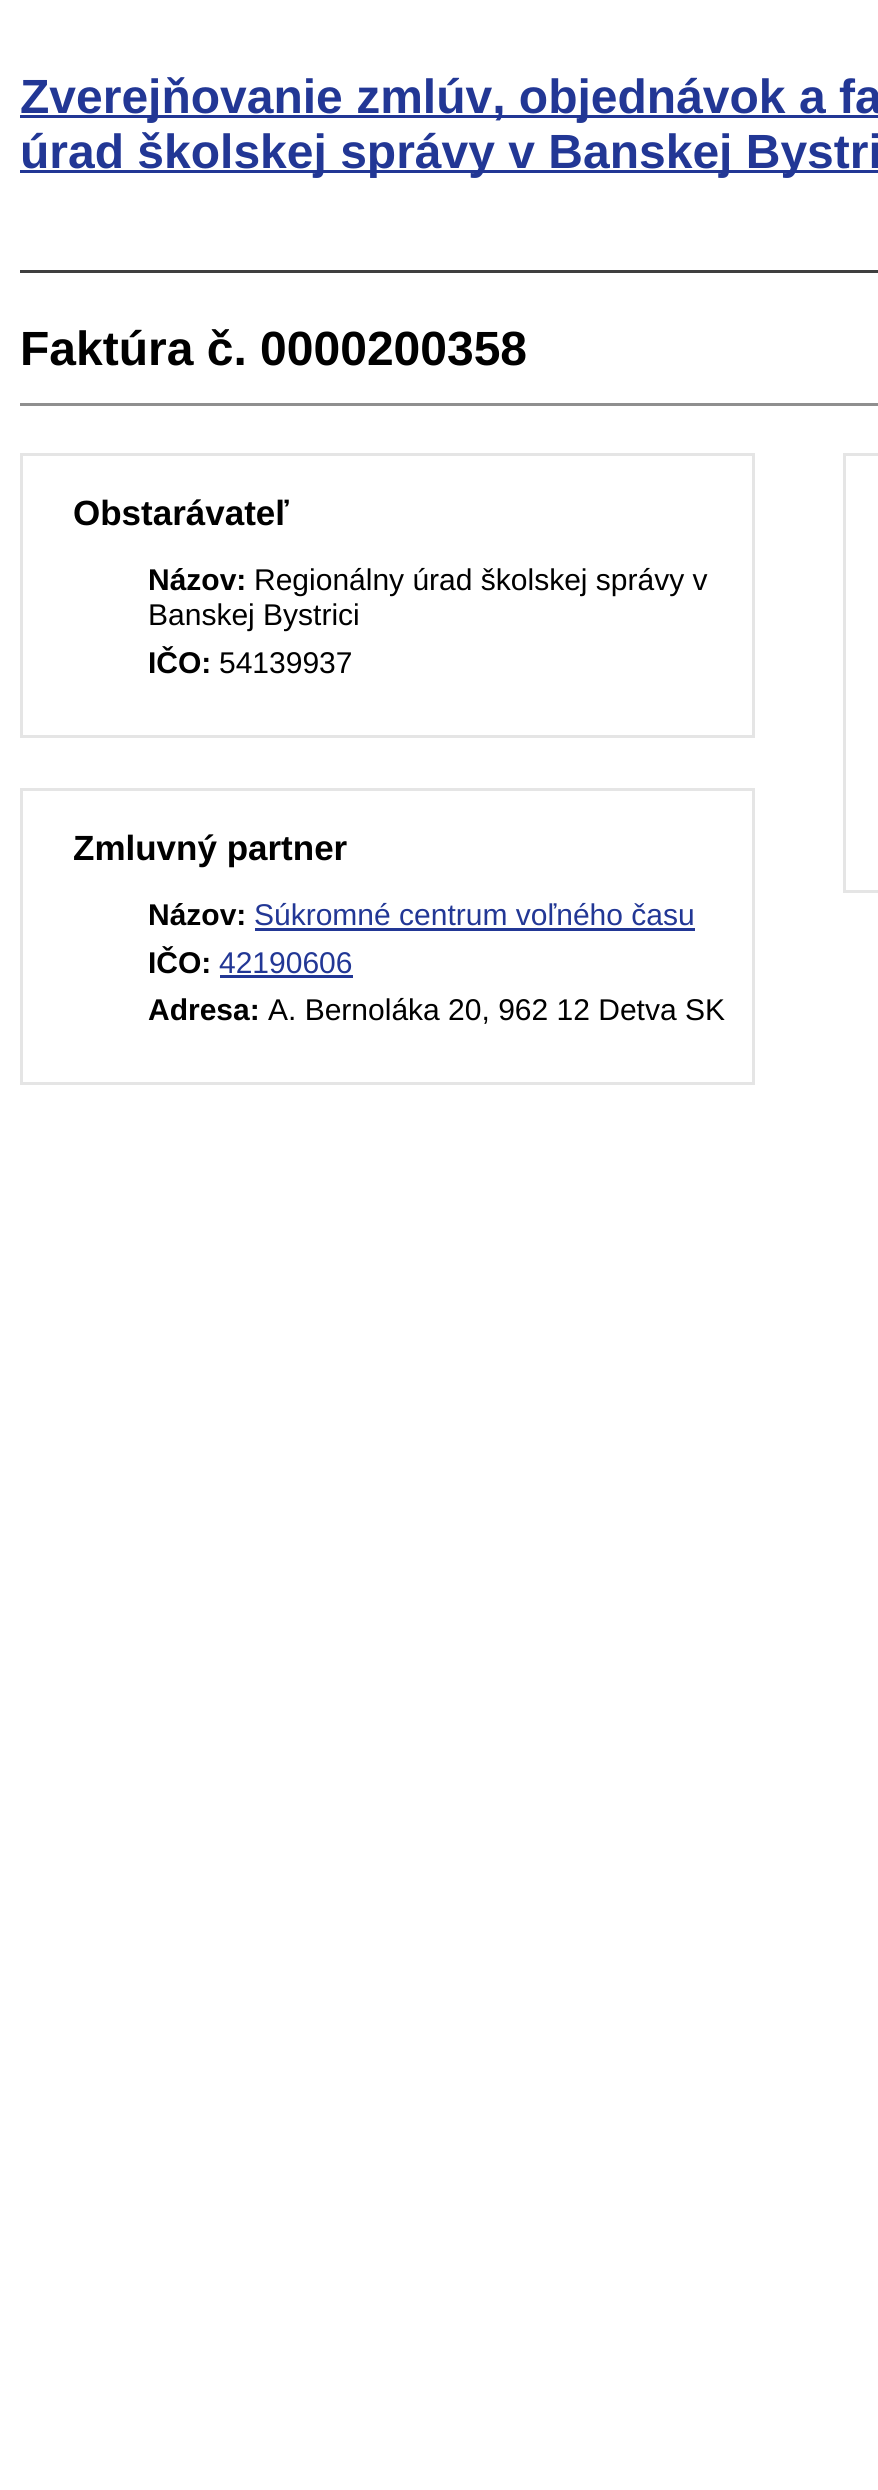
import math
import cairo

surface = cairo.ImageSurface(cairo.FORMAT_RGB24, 878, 2490)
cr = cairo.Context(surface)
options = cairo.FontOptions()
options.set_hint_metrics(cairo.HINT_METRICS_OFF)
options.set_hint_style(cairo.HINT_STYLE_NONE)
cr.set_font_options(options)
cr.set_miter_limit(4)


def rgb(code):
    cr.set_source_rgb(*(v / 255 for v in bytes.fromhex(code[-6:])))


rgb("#ffffff")
cr.paint()
for x, y, w, h, color in [
    (20, 270, 858, 3, "#3f3f3f"),
    (20, 115, 858, 3, "#223795"),
    (20, 170, 858, 3, "#223795"),
]:
    rgb(color)
    cr.rectangle(x, y, w, h)
    cr.fill()
cr.rectangle(21.5, 454.5, 732, 282)
rgb("#e5e5e5")
cr.set_line_width(3)
cr.stroke()
cr.rectangle(21.5, 789.5, 732, 294)
cr.stroke()
rgb("#223795")
cr.rectangle(255, 928, 440, 3)
cr.fill()
cr.rectangle(220, 975, 133, 3)
cr.fill()
cr.rectangle(844.5, 454.5, 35, 437)
rgb("#e5e5e5")
cr.stroke()
rgb("#8f8f8f")
cr.rectangle(20, 403, 858, 3)
cr.fill()
cr.select_font_face("Liberation Sans", cairo.FONT_SLANT_NORMAL, cairo.FONT_WEIGHT_BOLD)
cr.set_font_size(48)
rgb("#223795")
cr.move_to(20, 113)
cr.show_text("Zverejňovanie zmlúv, objednávok a fa")
cr.move_to(20, 168)
cr.show_text("úrad školskej správy v Banskej Bystri")
rgb("#000000")
cr.move_to(20, 365)
cr.show_text("Faktúra č. 0000200358")
cr.set_font_size(35)
cr.move_to(73, 525)
cr.show_text("Obstarávateľ")
cr.set_font_size(30)
cr.move_to(148, 590)
cr.show_text("Názov:")
cr.select_font_face("Liberation Sans")
cr.move_to(254, 590)
cr.show_text("Regionálny úrad školskej správy v")
cr.move_to(148, 625)
cr.show_text("Banskej Bystrici")
cr.select_font_face("Liberation Sans", cairo.FONT_SLANT_NORMAL, cairo.FONT_WEIGHT_BOLD)
cr.move_to(148, 673)
cr.show_text("IČO:")
cr.select_font_face("Liberation Sans")
cr.move_to(219, 673)
cr.show_text("54139937")
cr.select_font_face("Liberation Sans", cairo.FONT_SLANT_NORMAL, cairo.FONT_WEIGHT_BOLD)
cr.set_font_size(35)
cr.move_to(73, 860)
cr.show_text("Zmluvný partner")
cr.set_font_size(30)
cr.move_to(148, 925)
cr.show_text("Názov:")
cr.select_font_face("Liberation Sans")
rgb("#223795")
cr.move_to(254, 925)
cr.show_text("Súkromné centrum voľného času")
cr.select_font_face("Liberation Sans", cairo.FONT_SLANT_NORMAL, cairo.FONT_WEIGHT_BOLD)
rgb("#000000")
cr.move_to(148, 973)
cr.show_text("IČO:")
cr.select_font_face("Liberation Sans")
rgb("#223795")
cr.move_to(219, 973)
cr.show_text("42190606")
cr.select_font_face("Liberation Sans", cairo.FONT_SLANT_NORMAL, cairo.FONT_WEIGHT_BOLD)
rgb("#000000")
cr.move_to(148, 1020)
cr.show_text("Adresa:")
cr.select_font_face("Liberation Sans")
cr.move_to(268, 1020)
cr.show_text("A. Bernoláka 20, 962 12 Detva SK")
surface.write_to_png("page.png")
